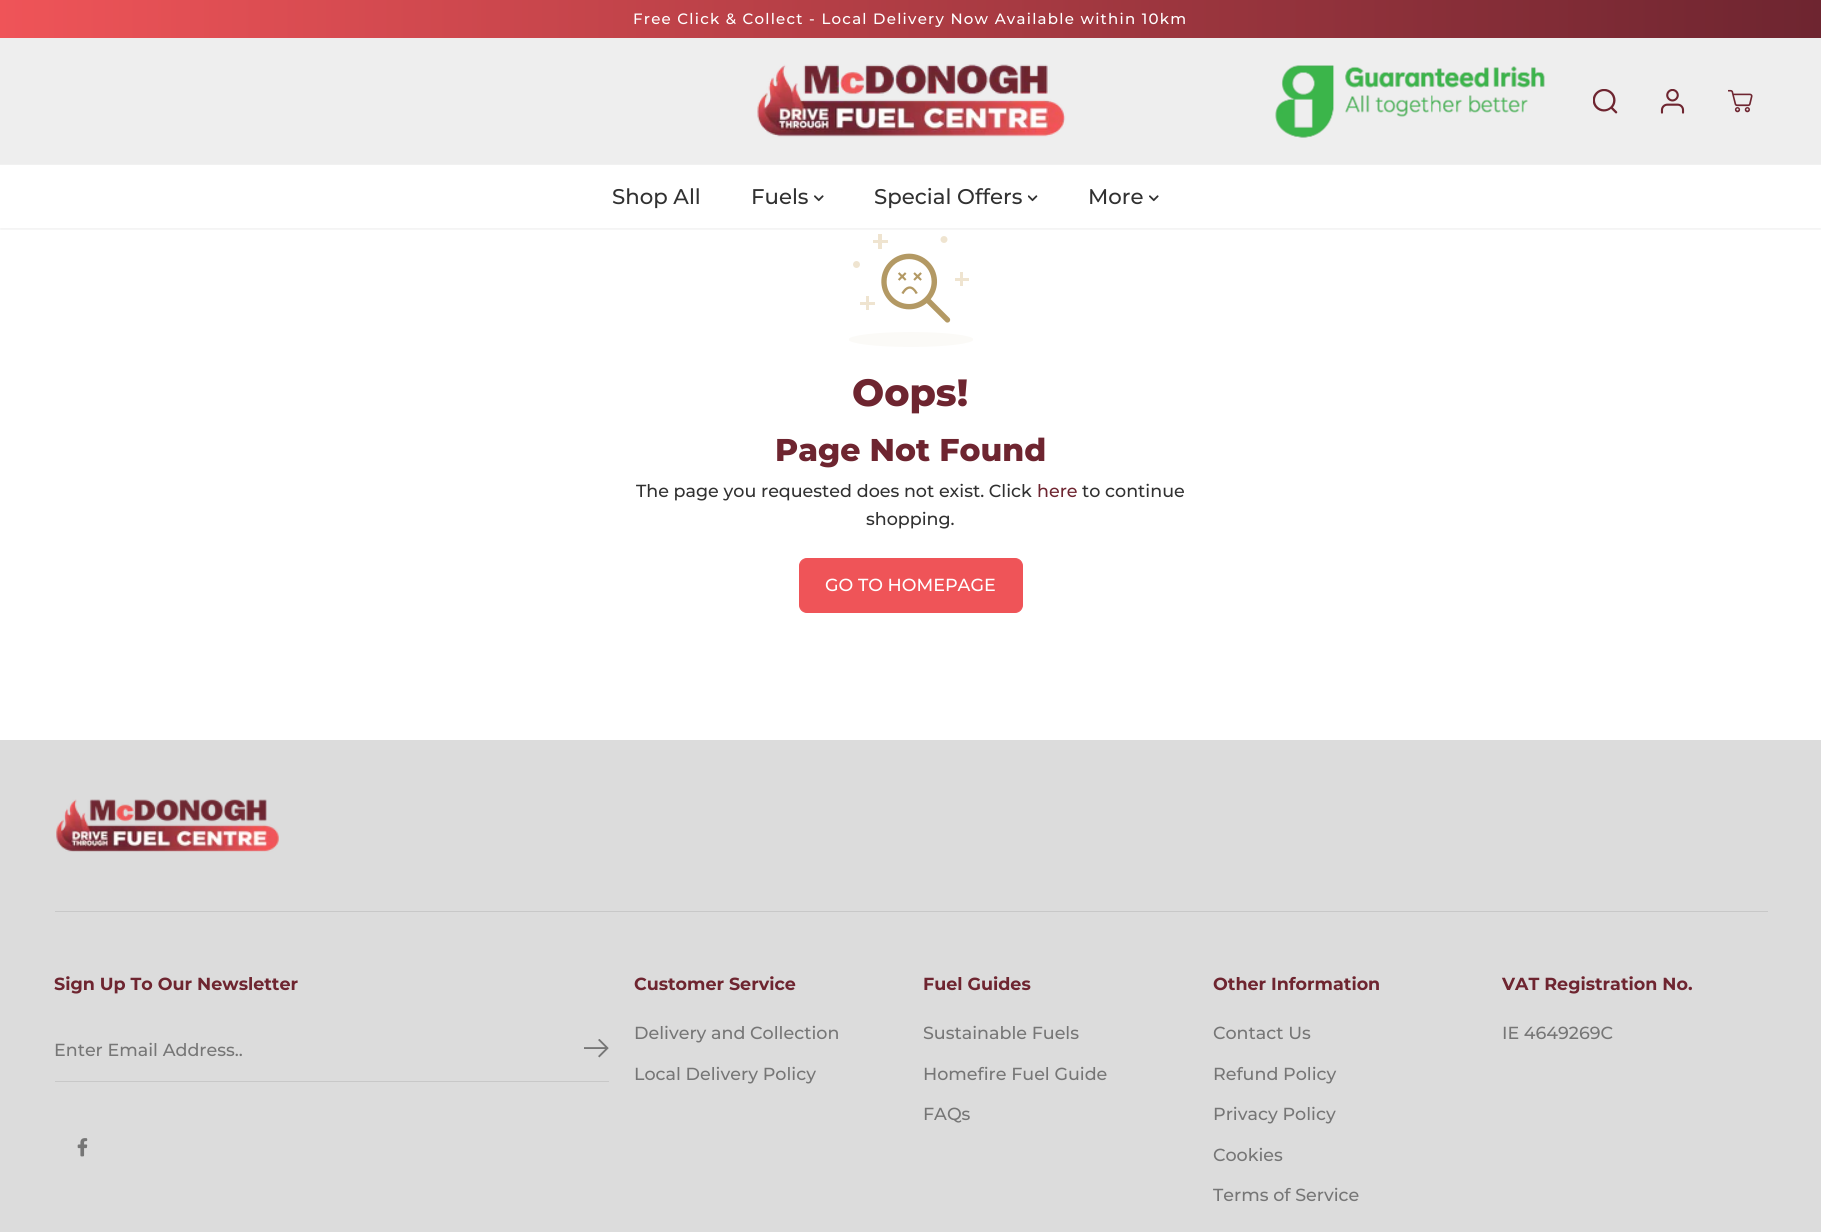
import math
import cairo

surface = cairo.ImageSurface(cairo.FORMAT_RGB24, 1821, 1232)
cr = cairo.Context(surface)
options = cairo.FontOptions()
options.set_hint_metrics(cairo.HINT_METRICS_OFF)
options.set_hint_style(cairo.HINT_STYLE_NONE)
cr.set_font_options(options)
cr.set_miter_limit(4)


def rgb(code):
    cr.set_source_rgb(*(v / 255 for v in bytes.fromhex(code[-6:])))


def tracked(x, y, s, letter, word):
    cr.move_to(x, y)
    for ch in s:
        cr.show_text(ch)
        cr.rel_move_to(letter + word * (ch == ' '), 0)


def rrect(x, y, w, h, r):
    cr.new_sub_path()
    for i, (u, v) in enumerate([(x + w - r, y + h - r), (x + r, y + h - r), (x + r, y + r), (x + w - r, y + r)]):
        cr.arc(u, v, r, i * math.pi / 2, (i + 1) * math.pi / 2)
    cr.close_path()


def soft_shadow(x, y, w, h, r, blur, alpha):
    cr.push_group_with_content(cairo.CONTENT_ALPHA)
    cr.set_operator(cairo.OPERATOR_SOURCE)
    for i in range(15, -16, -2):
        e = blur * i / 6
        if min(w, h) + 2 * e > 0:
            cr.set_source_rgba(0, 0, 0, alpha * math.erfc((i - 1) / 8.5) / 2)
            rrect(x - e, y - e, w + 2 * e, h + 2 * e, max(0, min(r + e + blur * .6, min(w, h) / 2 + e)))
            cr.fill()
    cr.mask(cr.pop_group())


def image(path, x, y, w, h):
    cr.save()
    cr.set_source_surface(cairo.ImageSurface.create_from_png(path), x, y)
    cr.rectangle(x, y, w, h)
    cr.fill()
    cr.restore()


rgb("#ffffff")
cr.paint()
rgb("#eeeeee")
cr.rectangle(0, 38, 1821, 126)
cr.fill()
gradient = cairo.LinearGradient(0, 19, 1821, 19)
gradient.add_color_stop_rgba(0, 0.937, 0.329, 0.345, 1)
gradient.add_color_stop_rgba(1, 0.431, 0.145, 0.188, 1)
cr.set_source(gradient)
cr.rectangle(0, 0, 1821, 38)
cr.fill()
cr.save()
cr.rectangle(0, 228, 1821, 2)
cr.clip()
rgb("#000000")
soft_shadow(0, 40, 1821, 190, 0, 1, 0.05)
cr.restore()
image("img/1.png", 757, 64, 309, 73)
image("img/2.png", 1275, 65, 270, 73)
image("img/3.png", 1593, 89, 25, 25)
image("img/4.png", 1660, 89, 25, 25)
image("img/5.png", 1728, 89, 25, 24)
rgb("#ffffff")
cr.rectangle(0, 227, 1821, 1)
cr.fill()
rgb("#f1f1f1")
cr.rectangle(0, 164, 1821, 1)
cr.fill()
image("img/6.png", 814, 195, 10, 7)
image("img/7.png", 1028, 195, 10, 7)
image("img/6.png", 1149, 195, 10, 7)
image("img/8.png", 849, 234, 124, 113)
rgb("#ef5458")
rrect(799.5, 558.5, 223, 54, 7.5)
cr.fill_preserve()
cr.set_line_width(1)
cr.stroke()
rgb("#dcdcdc")
cr.rectangle(0, 740, 1821, 492)
cr.fill()
rgb("#c8c8c8")
cr.rectangle(55, 911, 1713, 1)
cr.fill()
image("img/9.png", 56, 799, 223, 53)
cr.rectangle(55, 1081, 554, 1)
cr.fill()
image("img/10.png", 584, 1039, 25, 19)
image("img/11.png", 77, 1138, 11, 19)
cr.select_font_face("Montserrat Medium")
cr.set_font_size(15)
rgb("#ffffff")
tracked(633, 24, "Free Click & Collect - Local Delivery Now Available within 10km", 1.25, 0)
cr.set_font_size(21.25)
rgb("#313131")
for x, y, s in [
    (612, 204, "Shop All"),
    (751, 204, "Fuels"),
    (874, 204, "Special Offers"),
    (1088, 204, "More"),
]:
    cr.move_to(x, y)
    cr.show_text(s)
cr.select_font_face("Montserrat ExtraBold")
cr.set_font_size(38)
rgb("#6e2530")
cr.move_to(852, 406)
cr.show_text("Oops!")
cr.set_font_size(31.5)
cr.move_to(775, 461)
cr.show_text("Page Not Found")
cr.select_font_face("Montserrat Medium")
cr.set_font_size(17.5)
rgb("#313131")
cr.move_to(636, 497)
cr.show_text("The page you requested does not exist. Click")
rgb("#6e2530")
cr.move_to(1037, 497)
cr.show_text("here")
rgb("#313131")
cr.move_to(1082, 497)
cr.show_text("to continue")
cr.move_to(866, 525)
cr.show_text("shopping.")
rgb("#ffffff")
cr.move_to(825, 591)
cr.show_text("GO TO HOMEPAGE")
cr.select_font_face("Montserrat", cairo.FONT_SLANT_NORMAL, cairo.FONT_WEIGHT_BOLD)
rgb("#6e2530")
cr.move_to(54, 990)
cr.show_text("Sign Up To Our Newsletter")
cr.select_font_face("Montserrat Medium")
rgb("#767676")
cr.move_to(54, 1056)
cr.show_text("Enter Email Address..")
cr.select_font_face("Montserrat", cairo.FONT_SLANT_NORMAL, cairo.FONT_WEIGHT_BOLD)
rgb("#6e2530")
cr.move_to(634, 990)
cr.show_text("Customer Service")
cr.select_font_face("Montserrat Medium")
rgb("#767676")
cr.move_to(634, 1039)
cr.show_text("Delivery and Collection")
cr.move_to(634, 1080)
cr.show_text("Local Delivery Policy")
cr.select_font_face("Montserrat", cairo.FONT_SLANT_NORMAL, cairo.FONT_WEIGHT_BOLD)
rgb("#6e2530")
cr.move_to(923, 990)
cr.show_text("Fuel Guides")
cr.select_font_face("Montserrat Medium")
rgb("#767676")
for x, y, s in [
    (923, 1039, "Sustainable Fuels"),
    (923, 1080, "Homefire Fuel Guide"),
    (923, 1120, "FAQs"),
]:
    cr.move_to(x, y)
    cr.show_text(s)
cr.select_font_face("Montserrat", cairo.FONT_SLANT_NORMAL, cairo.FONT_WEIGHT_BOLD)
rgb("#6e2530")
cr.move_to(1213, 990)
cr.show_text("Other Information")
cr.select_font_face("Montserrat Medium")
rgb("#767676")
for x, y, s in [
    (1213, 1039, "Contact Us"),
    (1213, 1080, "Refund Policy"),
    (1213, 1120, "Privacy Policy"),
    (1213, 1161, "Cookies"),
    (1213, 1201, "Terms of Service"),
]:
    cr.move_to(x, y)
    cr.show_text(s)
cr.select_font_face("Montserrat", cairo.FONT_SLANT_NORMAL, cairo.FONT_WEIGHT_BOLD)
rgb("#6e2530")
cr.move_to(1502, 990)
cr.show_text("VAT Registration No.")
cr.select_font_face("Montserrat Medium")
rgb("#767676")
cr.move_to(1502, 1039)
cr.show_text("IE 4649269C")
surface.write_to_png("page.png")
